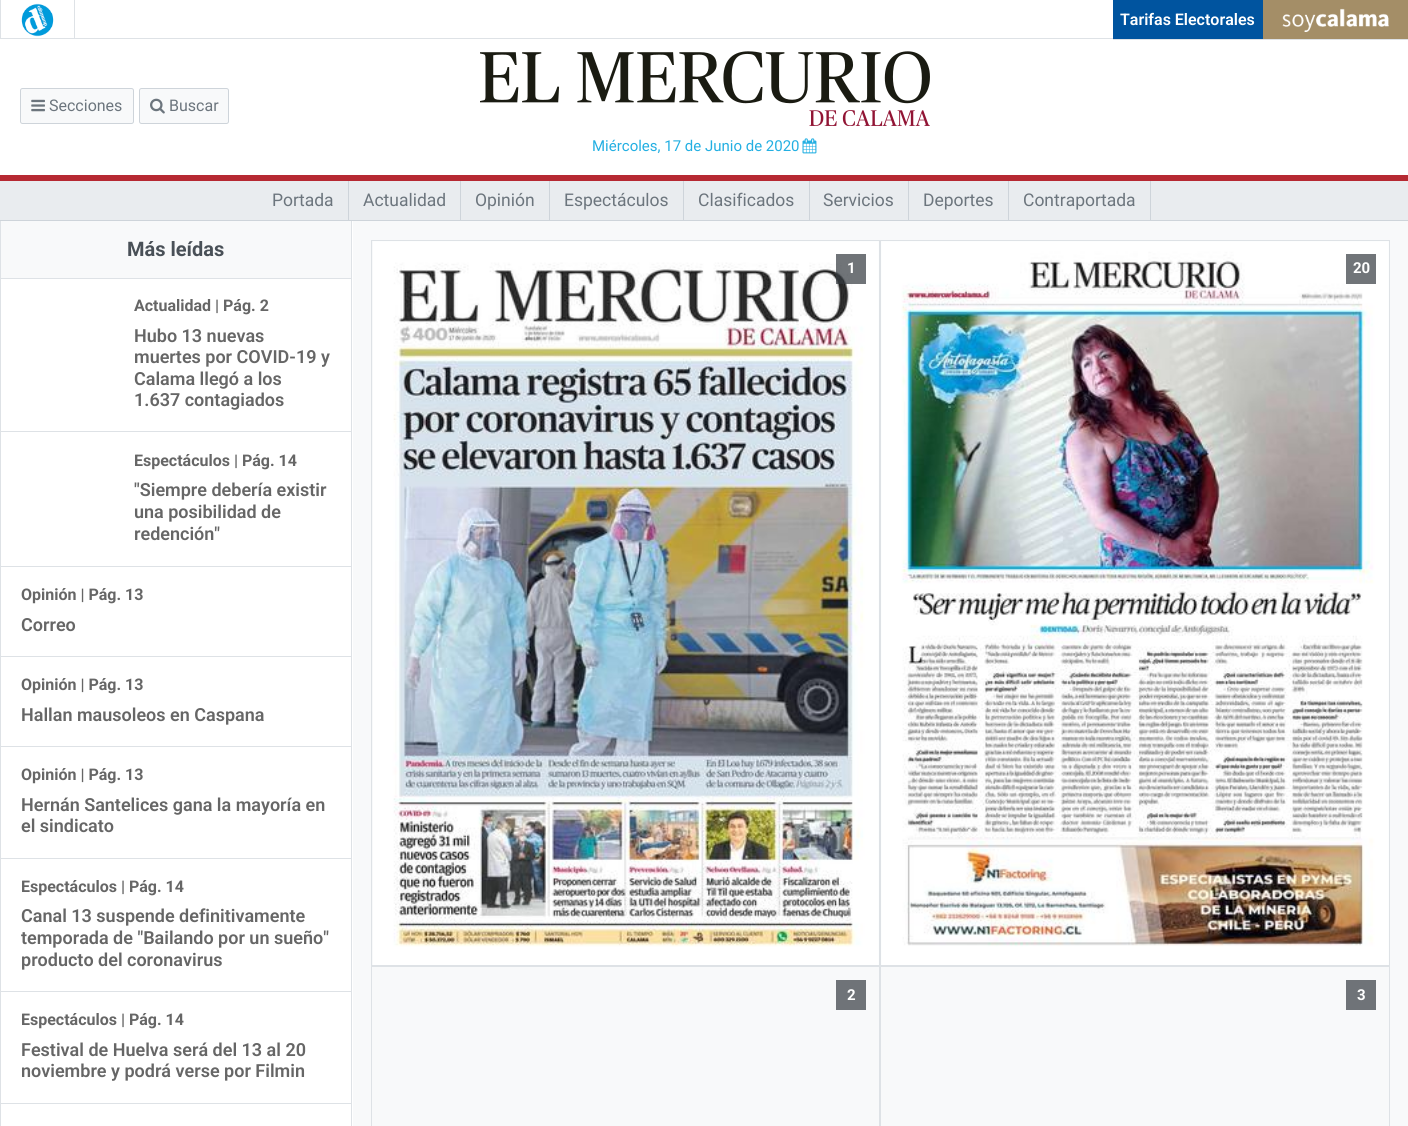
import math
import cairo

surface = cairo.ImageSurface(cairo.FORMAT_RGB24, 1408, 1126)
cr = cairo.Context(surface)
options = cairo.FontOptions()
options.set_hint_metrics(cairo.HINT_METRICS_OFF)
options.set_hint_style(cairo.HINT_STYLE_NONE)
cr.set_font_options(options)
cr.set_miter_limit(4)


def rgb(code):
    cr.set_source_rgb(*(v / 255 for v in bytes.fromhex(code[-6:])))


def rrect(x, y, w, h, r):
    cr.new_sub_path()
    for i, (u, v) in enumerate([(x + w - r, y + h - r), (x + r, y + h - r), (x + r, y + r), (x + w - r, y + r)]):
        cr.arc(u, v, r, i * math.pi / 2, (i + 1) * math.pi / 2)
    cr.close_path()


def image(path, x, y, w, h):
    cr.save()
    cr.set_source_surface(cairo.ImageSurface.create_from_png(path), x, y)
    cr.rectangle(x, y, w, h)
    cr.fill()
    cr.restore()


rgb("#ffffff")
cr.paint()
for x, y, w, h, color in [
    (0, 38, 1113, 1, "#dee2e6"),
    (74, 0, 1, 39, "#dee2e6"),
    (0, 0, 1, 39, "#dee2e6"),
]:
    rgb(color)
    cr.rectangle(x, y, w, h)
    cr.fill()
image("img/1.png", 21, 3, 33, 34)
for x, y, w, h, color in [
    (1113, 39, 295, 1, "#dee2e6"),
    (1113, 0, 150, 39, "#00549f"),
    (1263, 0, 145, 39, "#a48e67"),
]:
    rgb(color)
    cr.rectangle(x, y, w, h)
    cr.fill()
image("img/2.png", 1282, 8, 107, 24)
rgb("#b62932")
cr.rectangle(0, 175, 1408, 6)
cr.fill()
rgb("#f8f9fa")
rrect(20.5, 88.5, 113, 35, 2)
cr.fill_preserve()
rgb("#ced4da")
cr.set_line_width(1)
cr.stroke()
image("img/3.png", 31, 99, 14, 13)
rgb("#f8f9fa")
rrect(139.5, 88.5, 89, 35, 2)
cr.fill_preserve()
rgb("#ced4da")
cr.stroke()
image("img/4.png", 150, 98, 15, 16)
image("img/5.png", 480, 51, 450, 75)
image("img/6.png", 802, 138, 15, 16)
for x, y, w, h, color in [
    (0, 181, 1408, 39, "#e9ecef"),
    (0, 220, 1408, 1, "#ced4da"),
    (348, 181, 1, 39, "#ced4da"),
    (460, 181, 1, 39, "#ced4da"),
    (549, 181, 1, 39, "#ced4da"),
    (683, 181, 1, 39, "#ced4da"),
    (809, 181, 1, 39, "#ced4da"),
    (908, 181, 1, 39, "#ced4da"),
    (1008, 181, 1, 39, "#ced4da"),
    (1150, 181, 1, 39, "#ced4da"),
    (351, 221, 1, 905, "#dee2e6"),
    (0, 221, 1, 905, "#dee2e6"),
    (1, 221, 350, 57, "#f8f9fa"),
    (1, 278, 350, 1, "#dee2e6"),
    (1, 431, 350, 1, "#dee2e6"),
    (1, 566, 350, 1, "#dee2e6"),
    (1, 656, 350, 1, "#dee2e6"),
    (1, 746, 350, 1, "#dee2e6"),
    (1, 858, 350, 1, "#dee2e6"),
    (1, 991, 350, 1, "#dee2e6"),
    (1, 1103, 350, 1, "#dee2e6"),
    (353, 221, 1055, 905, "#f8f9fa"),
]:
    rgb(color)
    cr.rectangle(x, y, w, h)
    cr.fill()
cr.rectangle(371.5, 240.5, 508, 725)
rgb("#dee2e6")
cr.stroke()
image("img/7.png", 373, 241, 506, 724)
cr.set_source_rgba(0.204, 0.227, 0.251, 0.7)
cr.rectangle(836, 254, 30, 30)
cr.fill()
cr.rectangle(880.5, 240.5, 509, 725)
rgb("#dee2e6")
cr.stroke()
image("img/8.png", 881, 241, 508, 724)
rgb("#717579")
cr.rectangle(1346, 254, 30, 30)
cr.fill()
cr.rectangle(371.5, 966.5, 508, 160)
rgb("#dee2e6")
cr.stroke()
rgb("#6f7378")
cr.rectangle(836, 980, 30, 30)
cr.fill()
cr.rectangle(880.5, 966.5, 509, 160)
rgb("#dee2e6")
cr.stroke()
rgb("#6f7378")
cr.rectangle(1346, 980, 30, 30)
cr.fill()
cr.select_font_face("Roboto SemiBold")
cr.set_font_size(16)
rgb("#ffffff")
cr.move_to(1120, 25)
cr.show_text("Tarifas Electorales")
cr.select_font_face("Roboto")
rgb("#6c757d")
cr.move_to(49, 111)
cr.show_text("Secciones")
cr.move_to(169, 111)
cr.show_text("Buscar")
cr.set_font_size(15)
rgb("#23afe2")
cr.move_to(592, 151)
cr.show_text("Miércoles, 17 de Junio de 2020")
cr.set_font_size(17.5)
rgb("#6c757d")
for x, y, s in [
    (272, 206, "Portada"),
    (363, 206, "Actualidad"),
    (475, 206, "Opinión"),
    (564, 206, "Espectáculos"),
    (698, 206, "Clasificados"),
    (823, 206, "Servicios"),
    (923, 206, "Deportes"),
    (1023, 206, "Contraportada"),
]:
    cr.move_to(x, y)
    cr.show_text(s)
cr.select_font_face("Roboto", cairo.FONT_SLANT_NORMAL, cairo.FONT_WEIGHT_BOLD)
cr.set_font_size(20)
rgb("#495057")
cr.move_to(127, 256)
cr.show_text("Más leídas")
cr.set_font_size(16)
rgb("#666666")
cr.move_to(134, 311)
cr.show_text("Actualidad | Pág. 2")
cr.select_font_face("Roboto SemiBold")
cr.set_font_size(18)
for x, y, s in [
    (134, 342, "Hubo 13 nuevas"),
    (134, 363, "muertes por COVID-19 y"),
    (134, 385, "Calama llegó a los"),
    (134, 406, "1.637 contagiados"),
]:
    cr.move_to(x, y)
    cr.show_text(s)
cr.select_font_face("Roboto", cairo.FONT_SLANT_NORMAL, cairo.FONT_WEIGHT_BOLD)
cr.set_font_size(16)
cr.move_to(134, 466)
cr.show_text("Espectáculos | Pág. 14")
cr.select_font_face("Roboto SemiBold")
cr.set_font_size(18)
for x, y, s in [
    (134, 496, "\"Siempre debería existir"),
    (134, 518, "una posibilidad de"),
    (134, 540, "redención\""),
]:
    cr.move_to(x, y)
    cr.show_text(s)
cr.select_font_face("Roboto", cairo.FONT_SLANT_NORMAL, cairo.FONT_WEIGHT_BOLD)
cr.set_font_size(16)
cr.move_to(21, 600)
cr.show_text("Opinión | Pág. 13")
cr.select_font_face("Roboto SemiBold")
cr.set_font_size(18)
cr.move_to(21, 631)
cr.show_text("Correo")
cr.select_font_face("Roboto", cairo.FONT_SLANT_NORMAL, cairo.FONT_WEIGHT_BOLD)
cr.set_font_size(16)
cr.move_to(21, 690)
cr.show_text("Opinión | Pág. 13")
cr.select_font_face("Roboto SemiBold")
cr.set_font_size(18)
cr.move_to(21, 721)
cr.show_text("Hallan mausoleos en Caspana")
cr.select_font_face("Roboto", cairo.FONT_SLANT_NORMAL, cairo.FONT_WEIGHT_BOLD)
cr.set_font_size(16)
cr.move_to(21, 780)
cr.show_text("Opinión | Pág. 13")
cr.select_font_face("Roboto SemiBold")
cr.set_font_size(18)
cr.move_to(21, 811)
cr.show_text("Hernán Santelices gana la mayoría en")
cr.move_to(21, 832)
cr.show_text("el sindicato")
cr.select_font_face("Roboto", cairo.FONT_SLANT_NORMAL, cairo.FONT_WEIGHT_BOLD)
cr.set_font_size(16)
cr.move_to(21, 892)
cr.show_text("Espectáculos | Pág. 14")
cr.select_font_face("Roboto SemiBold")
cr.set_font_size(18)
for x, y, s in [
    (21, 922, "Canal 13 suspende definitivamente"),
    (21, 944, "temporada de \"Bailando por un sueño\""),
    (21, 966, "producto del coronavirus"),
]:
    cr.move_to(x, y)
    cr.show_text(s)
cr.select_font_face("Roboto", cairo.FONT_SLANT_NORMAL, cairo.FONT_WEIGHT_BOLD)
cr.set_font_size(16)
cr.move_to(21, 1025)
cr.show_text("Espectáculos | Pág. 14")
cr.select_font_face("Roboto SemiBold")
cr.set_font_size(18)
cr.move_to(21, 1056)
cr.show_text("Festival de Huelva será del 13 al 20")
cr.move_to(21, 1077)
cr.show_text("noviembre y podrá verse por Filmin")
cr.select_font_face("Roboto", cairo.FONT_SLANT_NORMAL, cairo.FONT_WEIGHT_BOLD)
cr.set_font_size(15)
rgb("#ffffff")
for x, y, s in [
    (847, 273, "1"),
    (1353, 273, "20"),
    (847, 1000, "2"),
    (1357, 1000, "3"),
]:
    cr.move_to(x, y)
    cr.show_text(s)
surface.write_to_png("page.png")
